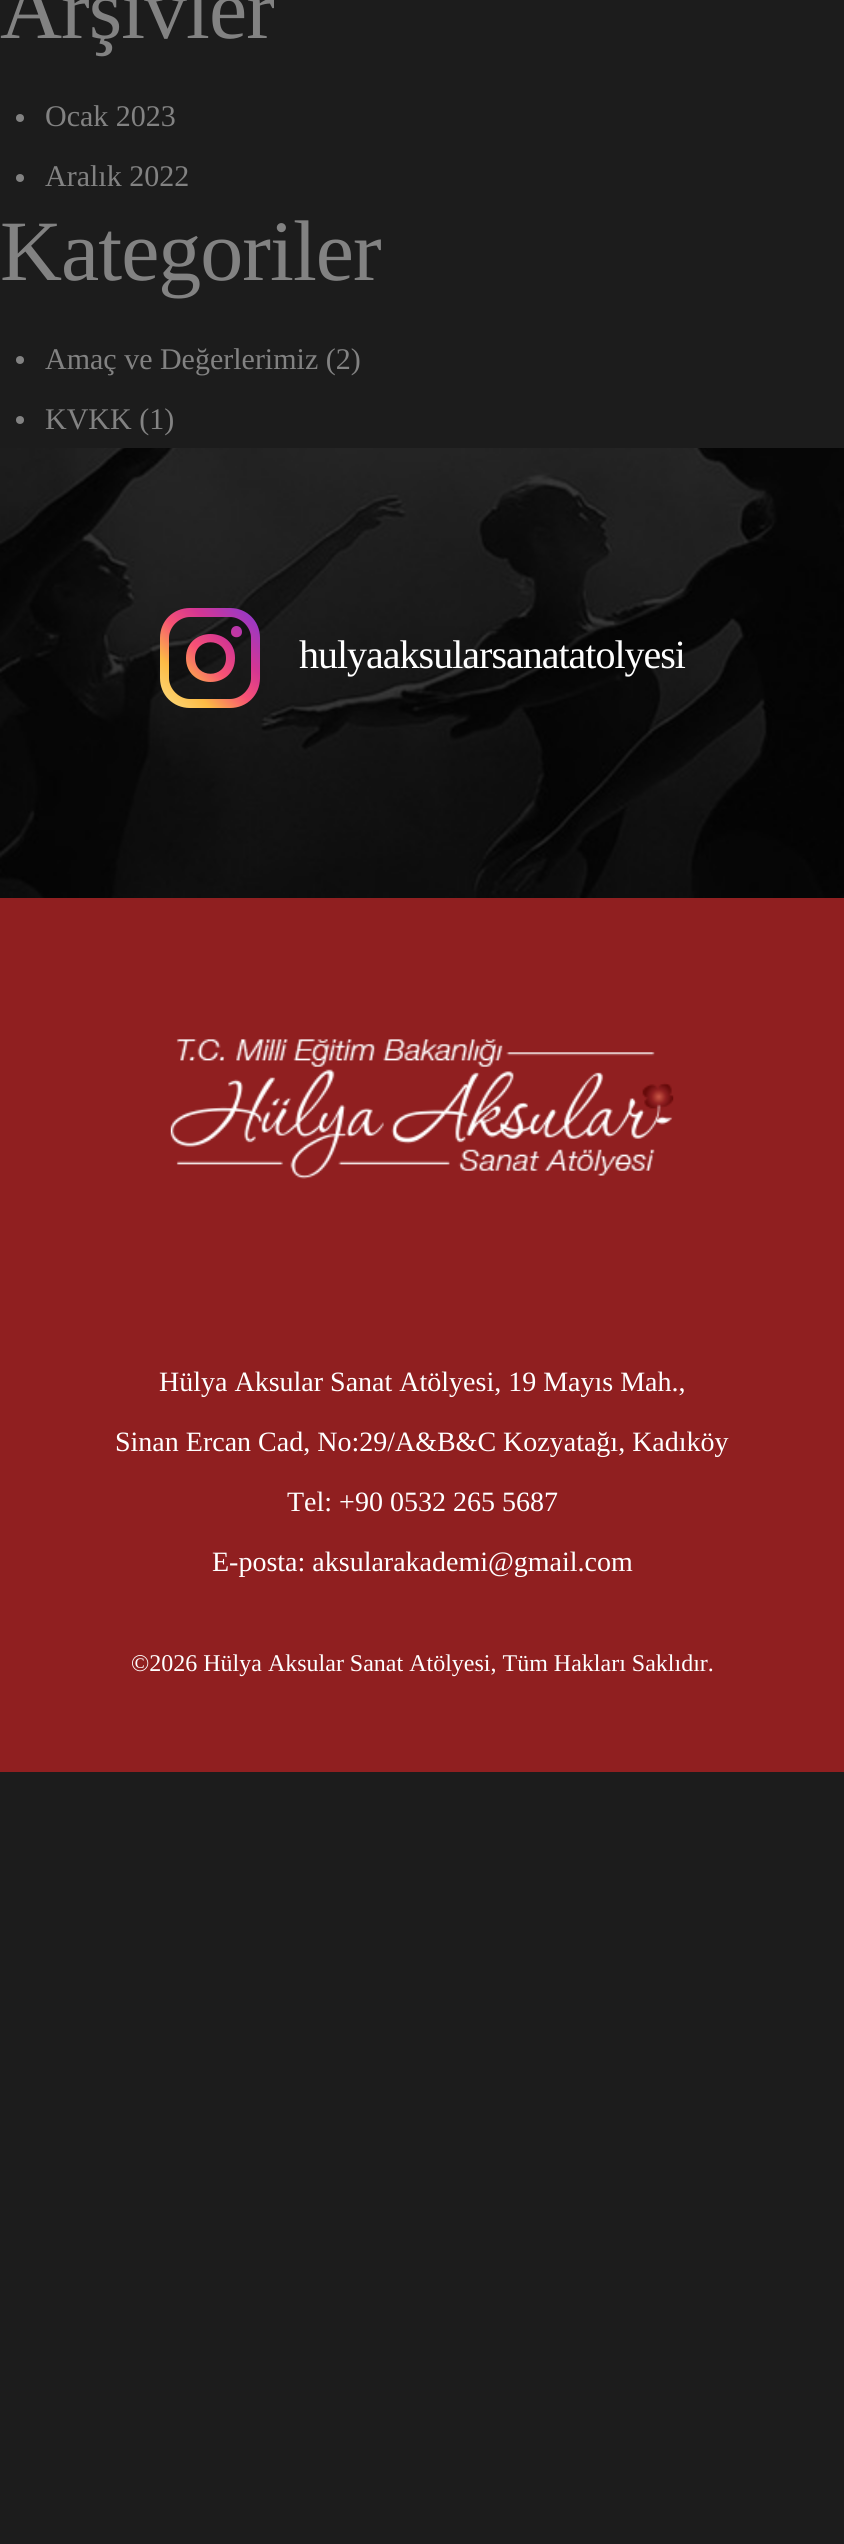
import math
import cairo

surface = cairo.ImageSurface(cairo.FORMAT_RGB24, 844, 2544)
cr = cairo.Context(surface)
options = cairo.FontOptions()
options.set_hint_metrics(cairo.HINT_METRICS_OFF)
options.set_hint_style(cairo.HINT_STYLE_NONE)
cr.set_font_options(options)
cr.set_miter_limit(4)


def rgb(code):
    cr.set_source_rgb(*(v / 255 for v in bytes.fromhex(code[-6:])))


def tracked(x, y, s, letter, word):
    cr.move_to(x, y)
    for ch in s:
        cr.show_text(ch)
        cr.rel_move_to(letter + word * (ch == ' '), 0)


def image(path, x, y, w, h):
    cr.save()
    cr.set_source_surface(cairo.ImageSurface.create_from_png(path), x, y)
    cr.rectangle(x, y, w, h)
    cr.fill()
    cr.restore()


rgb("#1c1c1c")
cr.paint()
rgb("#828282")
cr.arc(20, 118, 4, 0, 2 * math.pi)
cr.fill()
cr.arc(20, 178, 4, 0, 2 * math.pi)
cr.fill()
cr.arc(20, 360, 4, 0, 2 * math.pi)
cr.fill()
cr.arc(20, 420, 4, 0, 2 * math.pi)
cr.fill()
image("img/1.png", 0, 448, 844, 450)
gradient = cairo.LinearGradient(157, 711, 291, 577)
gradient.add_color_stop_rgba(0, 0.984, 0.882, 0.541, 1)
gradient.add_color_stop_rgba(0.21, 0.988, 0.733, 0.271, 1)
gradient.add_color_stop_rgba(0.38, 0.969, 0.322, 0.455, 1)
gradient.add_color_stop_rgba(0.52, 0.835, 0.212, 0.573, 1)
gradient.add_color_stop_rgba(0.74, 0.561, 0.224, 0.808, 1)
gradient.add_color_stop_rgba(1, 0.357, 0.31, 0.914, 1)
cr.set_source(gradient)
cr.set_fill_rule(cairo.FILL_RULE_EVEN_ODD)
cr.new_path()
cr.move_to(260, 678)
cr.line_to(260, 638)
cr.curve_to(260, 621, 247, 608, 230, 608)
cr.line_to(190, 608)
cr.curve_to(173, 608, 160, 621, 160, 638)
cr.line_to(160, 678)
cr.curve_to(160, 695, 173, 708, 190, 708)
cr.line_to(230, 708)
cr.curve_to(247, 708, 260, 695, 260, 678)
cr.close_path()
cr.move_to(230, 617)
cr.line_to(190, 617)
cr.curve_to(179, 617, 169, 627, 169, 638)
cr.line_to(169, 678)
cr.curve_to(169, 689, 179, 699, 190, 699)
cr.line_to(230, 699)
cr.curve_to(241, 699, 251, 689, 251, 678)
cr.line_to(251, 638)
cr.curve_to(251, 627, 241, 617, 230, 617)
cr.close_path()
cr.move_to(242, 632)
cr.curve_to(242, 624, 231, 624, 231, 632)
cr.curve_to(231, 639, 242, 639, 242, 632)
cr.close_path()
cr.move_to(235, 658)
cr.curve_to(235, 626, 186, 626, 186, 658)
cr.curve_to(186, 690, 235, 690, 235, 658)
cr.close_path()
cr.move_to(226, 658)
cr.curve_to(226, 679, 195, 679, 195, 658)
cr.curve_to(195, 637, 226, 637, 226, 658)
cr.close_path()
cr.fill()
rgb("#901f20")
cr.rectangle(0, 898, 844, 874)
cr.fill()
image("img/2.png", 170, 1039, 504, 140)
cr.select_font_face("Liberation Serif")
cr.set_font_size(86)
rgb("#828282")
tracked(0, 38, "Arşivler", -1, 0)
cr.set_font_size(30)
cr.move_to(45, 126)
cr.show_text("Ocak 2023")
cr.move_to(45, 186)
cr.show_text("Aralık 2022")
cr.set_font_size(86)
tracked(0, 280, "Kategoriler", -1, 0)
cr.set_font_size(30)
cr.move_to(45, 369)
cr.show_text("Amaç ve Değerlerimiz (2)")
cr.move_to(45, 429)
cr.show_text("KVKK (1)")
cr.set_font_size(40)
rgb("#ffffff")
tracked(299, 668, "hulyaaksularsanatatolyesi", -1, 0)
cr.set_font_size(28)
for x, y, s in [
    (159, 1391, "Hülya Aksular Sanat Atölyesi, 19 Mayıs Mah.,"),
    (115, 1451, "Sinan Ercan Cad, No:29/A&B&C Kozyatağı, Kadıköy"),
    (287, 1511, "Tel: +90 0532 265 5687"),
    (212, 1571, "E-posta: aksularakademi@gmail.com"),
]:
    cr.move_to(x, y)
    cr.show_text(s)
cr.set_font_size(24)
cr.move_to(131, 1671)
cr.show_text("©2026 Hülya Aksular Sanat Atölyesi, Tüm Hakları Saklıdır.")
surface.write_to_png("page.png")
